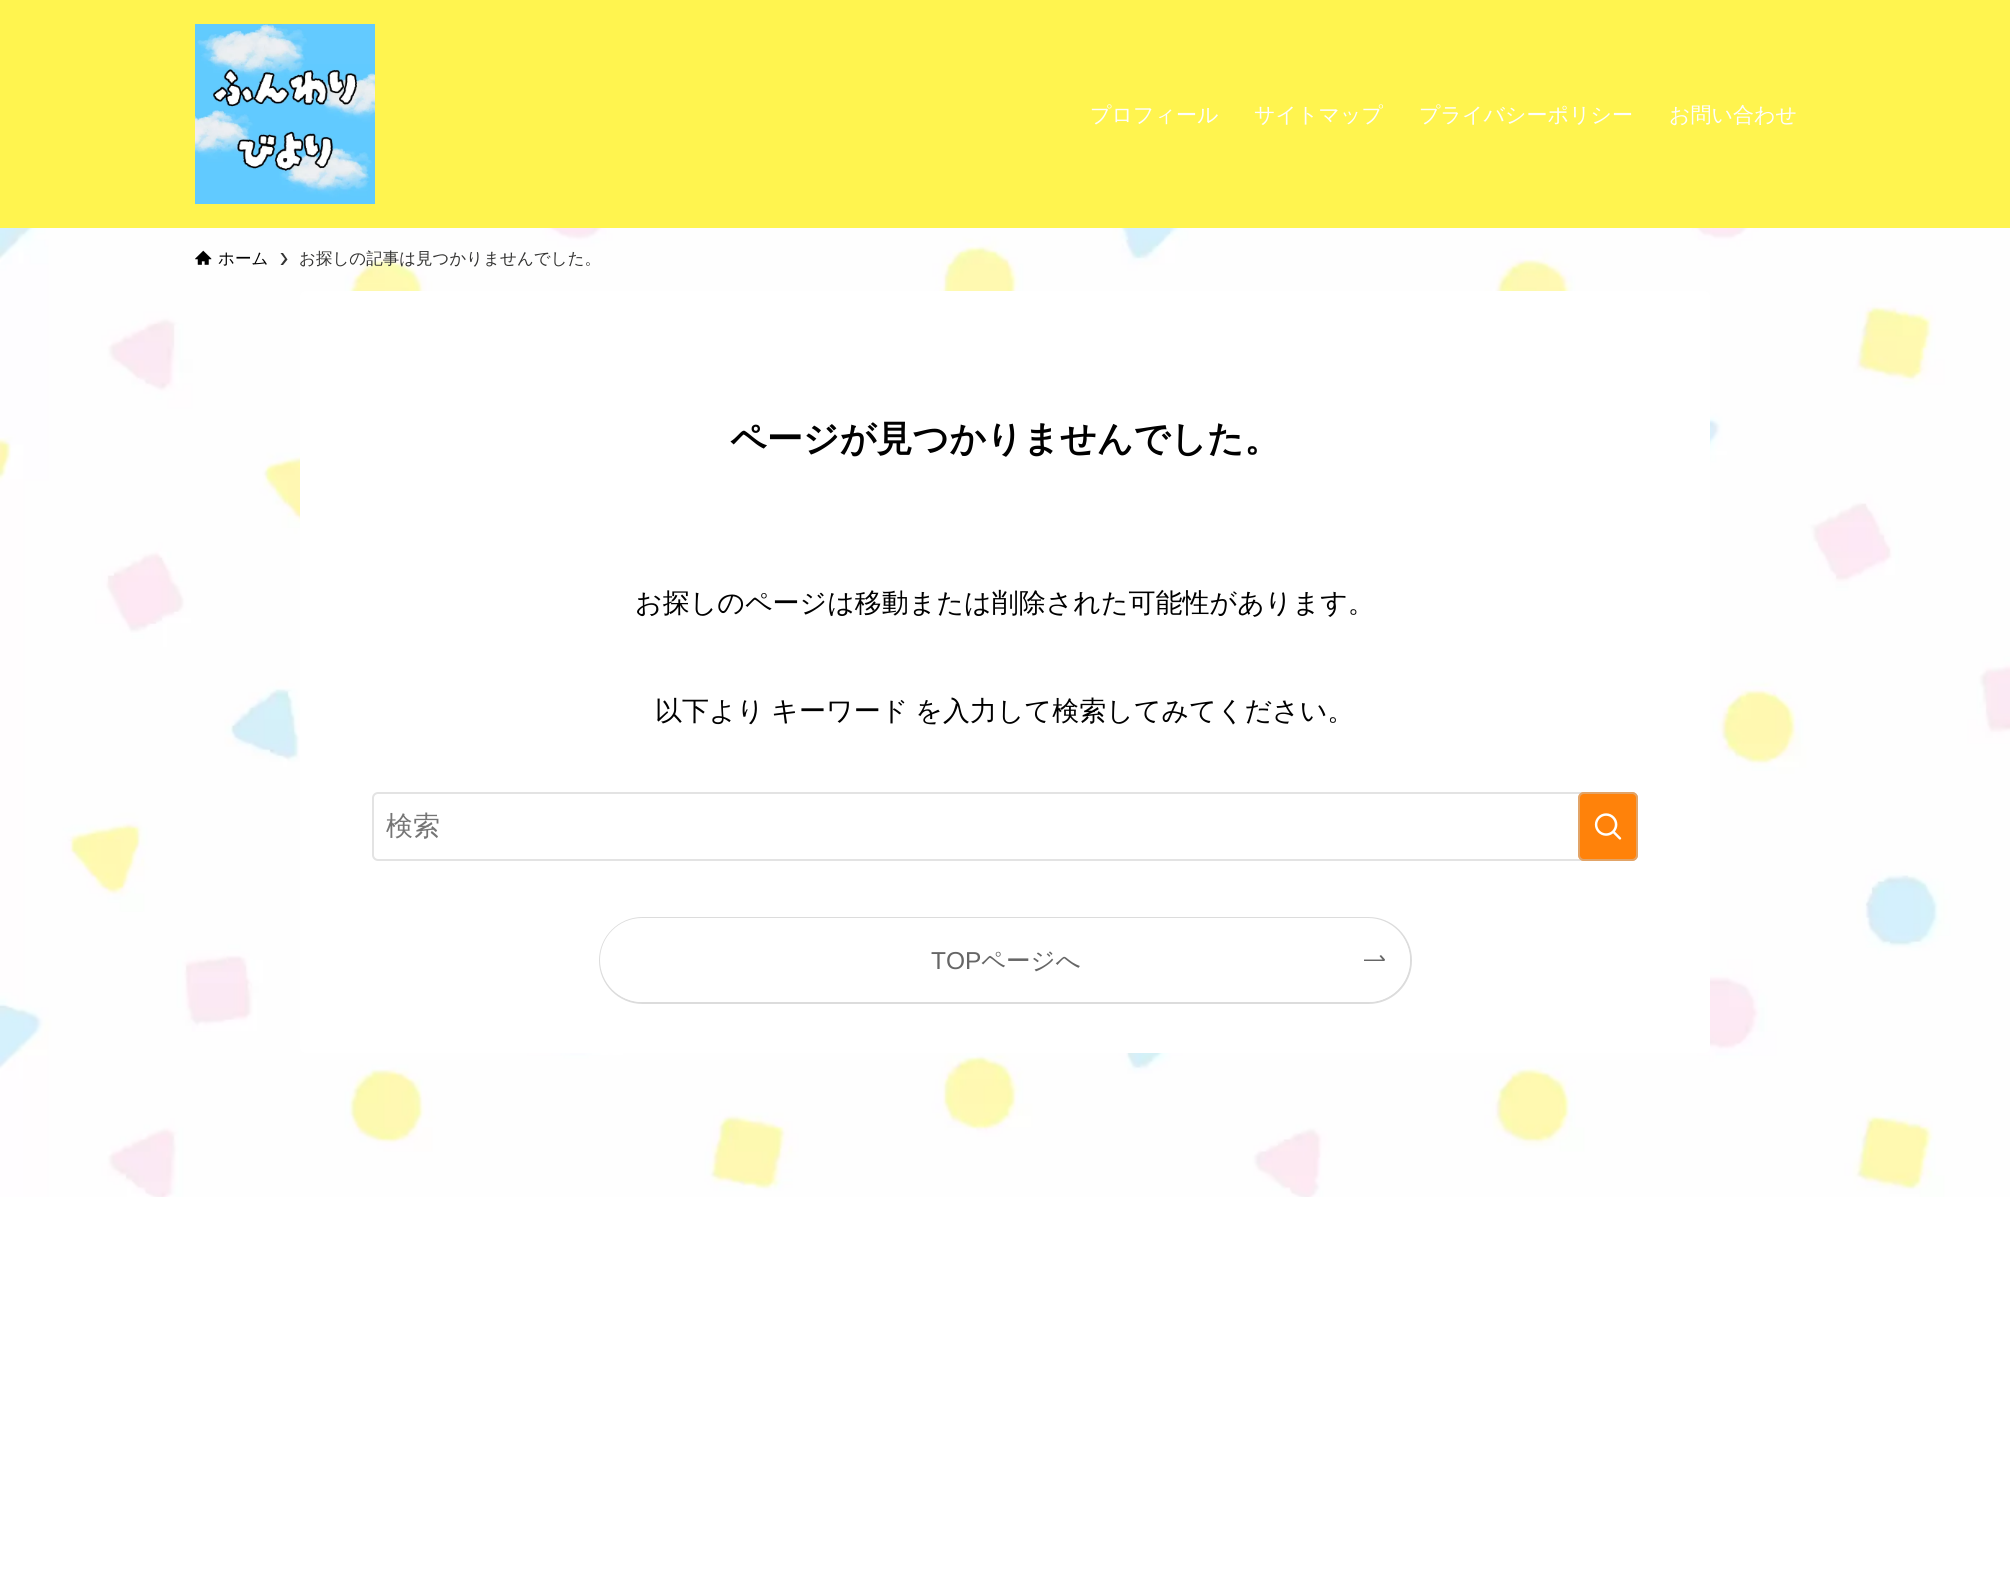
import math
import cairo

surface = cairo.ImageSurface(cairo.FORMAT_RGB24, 2010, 1587)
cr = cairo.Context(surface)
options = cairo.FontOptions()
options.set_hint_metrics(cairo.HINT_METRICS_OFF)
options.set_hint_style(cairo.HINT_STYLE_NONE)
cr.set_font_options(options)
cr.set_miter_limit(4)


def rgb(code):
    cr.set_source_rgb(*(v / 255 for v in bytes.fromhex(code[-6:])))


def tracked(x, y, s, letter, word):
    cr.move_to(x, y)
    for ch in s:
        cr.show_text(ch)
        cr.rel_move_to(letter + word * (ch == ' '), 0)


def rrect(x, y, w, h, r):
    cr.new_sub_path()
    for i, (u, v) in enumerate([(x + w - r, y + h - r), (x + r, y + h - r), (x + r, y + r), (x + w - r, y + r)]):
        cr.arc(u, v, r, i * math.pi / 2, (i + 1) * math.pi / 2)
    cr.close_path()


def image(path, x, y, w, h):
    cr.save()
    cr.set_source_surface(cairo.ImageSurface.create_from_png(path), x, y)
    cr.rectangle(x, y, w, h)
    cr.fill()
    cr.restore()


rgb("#ffffff")
cr.paint()
image("img/1.png", 0, 228, 2010, 969)
rgb("#fff44f")
cr.rectangle(0, 0, 2010, 228)
cr.fill()
image("img/2.png", 195, 24, 180, 180)
image("img/3.png", 195, 250, 17, 15)
rgb("#333333")
cr.new_path()
cr.move_to(283, 253)
cr.line_to(280.5, 253)
cr.line_to(285, 259)
cr.line_to(280.5, 265)
cr.line_to(283, 265)
cr.line_to(287.5, 259.5)
cr.close_path()
cr.fill()
rgb("#ffffff")
rrect(300, 291, 1410, 762, 6)
cr.fill()
rrect(373, 793, 1264, 67, 5)
rgb("#e3e3e3")
cr.stroke()
rgb("#ff820a")
rrect(1578, 792, 60, 69, 6)
cr.fill()
rrect(1579, 793, 58, 67, 5)
cr.set_source_rgba(0.78, 0.78, 0.78, 0.5)
cr.stroke()
image("img/4.png", 1594, 813, 28, 27)
rrect(600, 918, 811, 85, 42.5)
rgb("#dcdcdc")
cr.stroke()
rgb("#ffffff")
rrect(600, 918, 810, 84, 42)
cr.fill()
rgb("#666666")
cr.new_path()
cr.move_to(1384.5, 961)
cr.line_to(1364, 961)
cr.line_to(1364, 959.5)
cr.line_to(1382.5, 959.5)
cr.line_to(1379.5, 956)
cr.line_to(1381, 955)
cr.line_to(1385, 959.5)
cr.close_path()
cr.fill()
cr.select_font_face("WenQuanYi Zen Hei Medium")
cr.set_font_size(21)
rgb("#fdfdfd")
for x, y, s in [
    (1090, 122, "プロフィール"),
    (1254, 122, "サイトマップ"),
    (1419, 122, "プライバシーポリシー"),
    (1669, 122, "お問い合わせ"),
]:
    cr.move_to(x, y)
    cr.show_text(s)
cr.set_font_size(16.5)
rgb("#000000")
cr.move_to(218, 264)
cr.show_text("ホーム")
rgb("#333332")
cr.move_to(299, 264)
cr.show_text("お探しの記事は見つかりませんでした。")
cr.select_font_face("WenQuanYi Zen Hei", cairo.FONT_SLANT_NORMAL, cairo.FONT_WEIGHT_BOLD)
cr.set_font_size(36)
rgb("#000000")
cr.move_to(730, 451)
cr.show_text("ページが見つかりませんでした。")
cr.select_font_face("WenQuanYi Zen Hei Medium")
cr.set_font_size(27)
cr.move_to(635, 612)
cr.show_text("お探しのページは移動または削除された可能性があります。")
tracked(655, 720, "以下より キーワード を入力して検索してみてください。", 0, -1)
rgb("#757575")
cr.move_to(386, 835)
cr.show_text("検索")
cr.select_font_face("Liberation Sans")
cr.set_font_size(24.5)
rgb("#666666")
cr.move_to(931, 969)
cr.show_text("TOP")
cr.select_font_face("WenQuanYi Zen Hei Medium")
cr.move_to(981, 969)
cr.show_text("ページへ")
surface.write_to_png("page.png")
